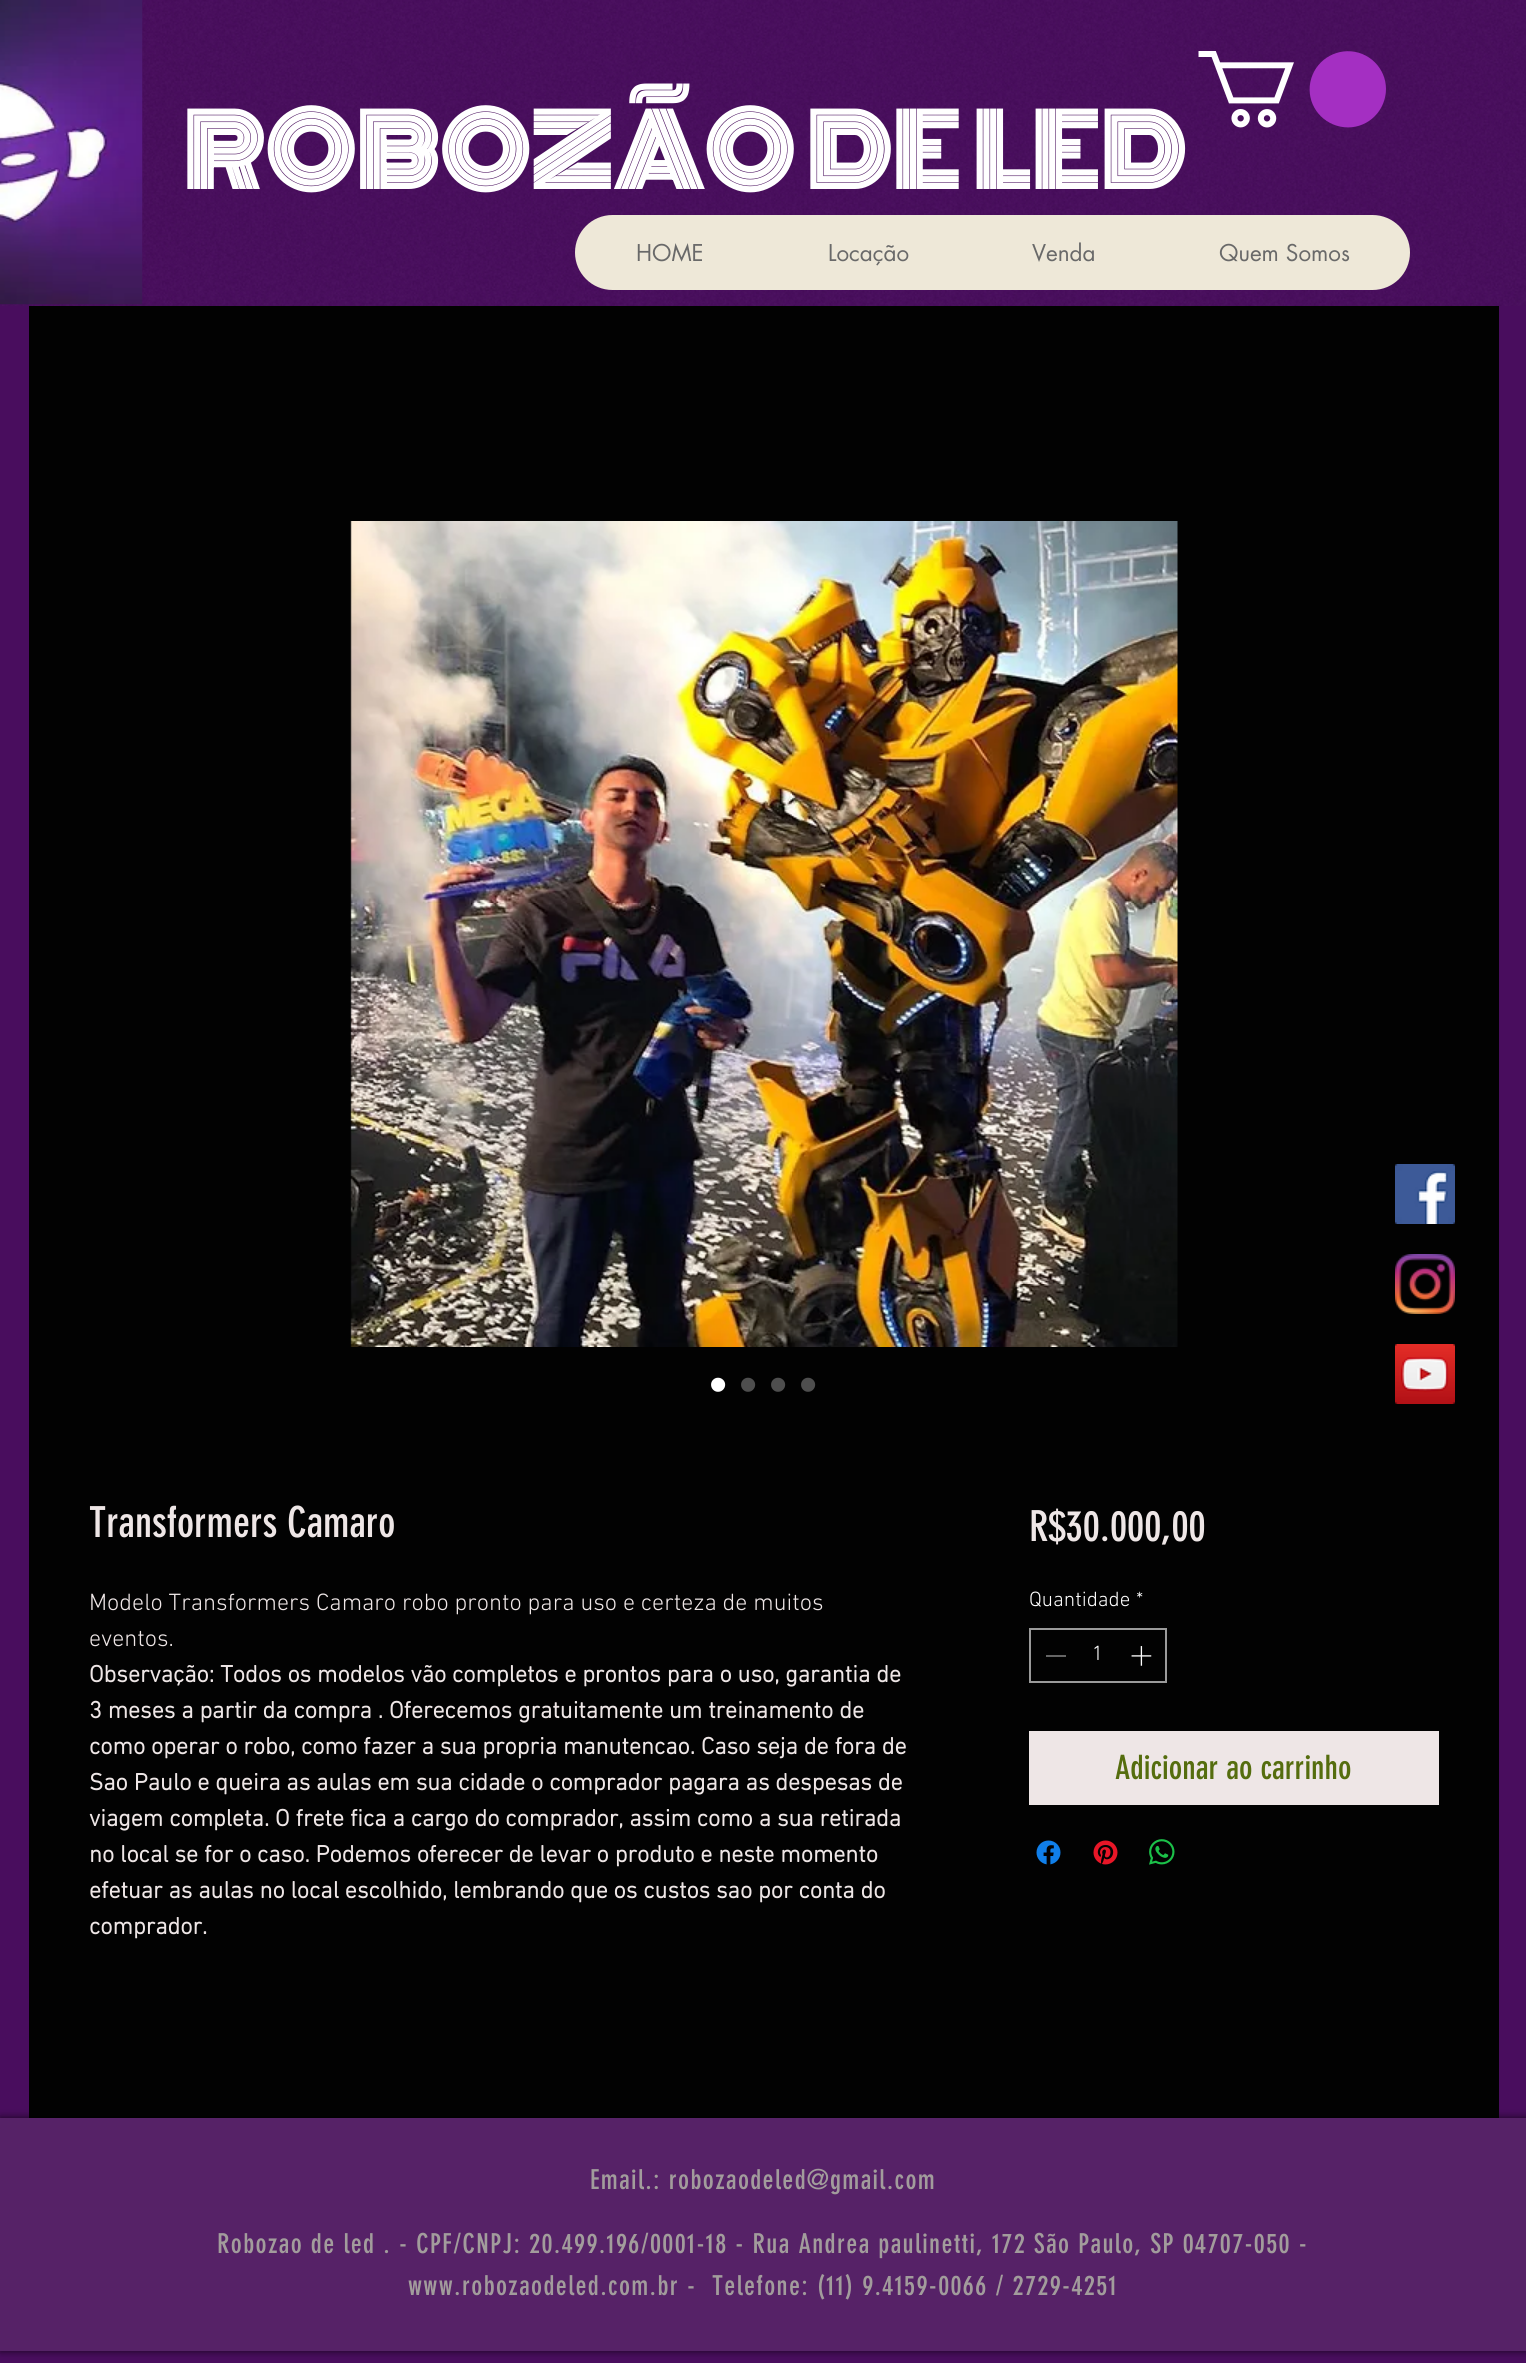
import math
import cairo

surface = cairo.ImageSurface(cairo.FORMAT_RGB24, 1526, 2363)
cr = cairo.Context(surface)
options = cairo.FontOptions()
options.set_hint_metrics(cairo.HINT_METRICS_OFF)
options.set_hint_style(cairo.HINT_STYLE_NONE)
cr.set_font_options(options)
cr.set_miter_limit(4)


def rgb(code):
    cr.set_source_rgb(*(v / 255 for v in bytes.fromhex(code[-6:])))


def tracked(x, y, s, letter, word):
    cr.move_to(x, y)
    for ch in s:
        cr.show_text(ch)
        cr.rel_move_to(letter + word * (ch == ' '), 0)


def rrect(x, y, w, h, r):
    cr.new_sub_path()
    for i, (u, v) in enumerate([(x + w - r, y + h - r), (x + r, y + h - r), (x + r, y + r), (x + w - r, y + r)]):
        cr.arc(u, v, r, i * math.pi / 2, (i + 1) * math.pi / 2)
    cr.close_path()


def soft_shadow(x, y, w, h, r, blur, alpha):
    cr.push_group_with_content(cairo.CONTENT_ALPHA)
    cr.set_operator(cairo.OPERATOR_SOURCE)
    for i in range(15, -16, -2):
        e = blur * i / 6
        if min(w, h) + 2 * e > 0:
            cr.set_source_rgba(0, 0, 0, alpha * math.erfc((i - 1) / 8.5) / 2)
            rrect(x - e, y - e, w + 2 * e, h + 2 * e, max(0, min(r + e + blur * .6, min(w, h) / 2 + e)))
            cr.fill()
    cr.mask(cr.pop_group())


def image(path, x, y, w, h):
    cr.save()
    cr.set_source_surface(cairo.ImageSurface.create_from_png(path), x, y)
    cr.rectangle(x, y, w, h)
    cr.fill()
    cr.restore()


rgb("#490d5e")
cr.paint()
image("img/1.png", 2, 0, 1524, 306)
image("img/2.png", 0, 0, 143, 305)
image("img/3.png", 1198, 51, 188, 77)
rgb("#eee8d8")
rrect(575, 215, 835, 75, 37.5)
cr.fill()
rgb("#020202")
cr.rectangle(29, 306, 1470, 1812)
cr.fill()
image("img/4.png", 1395, 1164, 60, 60)
image("img/5.png", 1395, 1254, 60, 60)
image("img/6.png", 1395, 1344, 60, 60)
image("img/7.png", 350, 521, 828, 826)
cr.rectangle(1030, 1629, 136, 53)
rgb("#9a9a9a")
cr.stroke()
rgb("#656565")
cr.rectangle(1046, 1655, 20, 2)
cr.fill()
image("img/8.png", 1131, 1646, 21, 20)
rgb("#eee6e6")
cr.rectangle(1029, 1731, 410, 74)
cr.fill()
image("img/9.png", 1036, 1840, 25, 25)
image("img/10.png", 1093, 1840, 25, 25)
image("img/11.png", 1149, 1839, 26, 26)
cr.save()
cr.set_fill_rule(cairo.FILL_RULE_EVEN_ODD)
cr.new_path()
cr.move_to(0, 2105)
cr.line_to(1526, 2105)
cr.line_to(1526, 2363)
cr.line_to(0, 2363)
cr.close_path()
cr.move_to(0, 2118)
cr.line_to(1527, 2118)
cr.line_to(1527, 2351)
cr.line_to(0, 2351)
cr.close_path()
cr.clip()
rgb("#000000")
soft_shadow(0, 2118, 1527, 233, 0, 4, 0.7)
cr.restore()
cr.set_source_rgba(0.635, 0.612, 0.612, 0.15)
cr.rectangle(0, 2118, 1526, 233)
cr.fill()
cr.select_font_face("Monoton", cairo.FONT_SLANT_NORMAL, cairo.FONT_WEIGHT_BOLD)
cr.set_font_size(96)
rgb("#ffffff")
tracked(183, 189, "ROBOZÃO DE LED", 1, 0)
cr.select_font_face("futura")
cr.set_font_size(22.5)
rgb("#696969")
for x, y, s in [
    (636, 261, "HOME"),
    (828, 261, "Locação"),
    (1032, 261, "Venda"),
    (1219, 261, "Quem Somos"),
]:
    cr.move_to(x, y)
    cr.show_text(s)
cr.select_font_face("Liberation Sans")
cr.set_font_size(52)
rgb("#ffffff")
cr.move_to(709, 1402)
cr.show_text("•")
rgb("#4e4e4e")
for x, y, s in [
    (739, 1402, "•"),
    (769, 1402, "•"),
    (799, 1402, "•"),
]:
    cr.move_to(x, y)
    cr.show_text(s)
cr.select_font_face("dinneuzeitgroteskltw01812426")
cr.set_font_size(42)
rgb("#eee6e6")
cr.move_to(89, 1537)
cr.show_text("Transformers Camaro")
cr.select_font_face("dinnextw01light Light")
cr.set_font_size(24)
cr.move_to(89, 1610)
cr.show_text("Modelo Transformers Camaro robo pronto para uso e certeza de muitos")
cr.move_to(89, 1646)
cr.show_text("eventos.")
cr.select_font_face("dinnextw01light", cairo.FONT_SLANT_NORMAL, cairo.FONT_WEIGHT_BOLD)
for x, y, s in [
    (89, 1682, "Observação: Todos os modelos vão completos e prontos para o uso, garantia de"),
    (89, 1718, "3 meses a partir da compra . Oferecemos gratuitamente um treinamento de"),
    (89, 1754, "como operar o robo, como fazer a sua propria manutencao. Caso seja de fora de"),
    (89, 1790, "Sao Paulo e queira as aulas em sua cidade o comprador pagara as despesas de"),
    (89, 1826, "viagem completa. O frete fica a cargo do comprador, assim como a sua retirada"),
    (89, 1862, "no local se for o caso. Podemos oferecer de levar o produto e neste momento"),
    (89, 1898, "efetuar as aulas no local escolhido, lembrando que os custos sao por conta do"),
    (89, 1934, "comprador."),
]:
    cr.move_to(x, y)
    cr.show_text(s)
cr.select_font_face("dinneuzeitgroteskltw01812426")
cr.set_font_size(42)
cr.move_to(1029, 1541)
cr.show_text("R$30.000,00")
cr.select_font_face("dinnextw01light Light")
cr.set_font_size(21)
rgb("#ffffff")
for x, y, s in [
    (1029, 1606, "Quantidade"),
    (1136, 1606, "*"),
    (1092, 1660, "1"),
]:
    cr.move_to(x, y)
    cr.show_text(s)
cr.select_font_face("dinneuzeitgroteskltw01812426")
cr.set_font_size(33)
rgb("#556d0e")
cr.move_to(1115, 1779)
cr.show_text("Adicionar ao carrinho")
cr.set_font_size(27)
rgb("#a29c9c")
for x, y, s in [
    (590, 2189, "Email.: robozaodeled@gmail.com"),
    (217, 2253, "Robozao de led . - CPF/CNPJ: 20.499.196/0001-18 - Rua Andrea paulinetti, 172 São Paulo, SP 04707-050 -"),
    (408, 2295, "www.robozaodeled.com.br -  Telefone: (11) 9.4159-0066 / 2729-4251"),
]:
    tracked(x, y, s, 1.35, 0)
surface.write_to_png("page.png")
